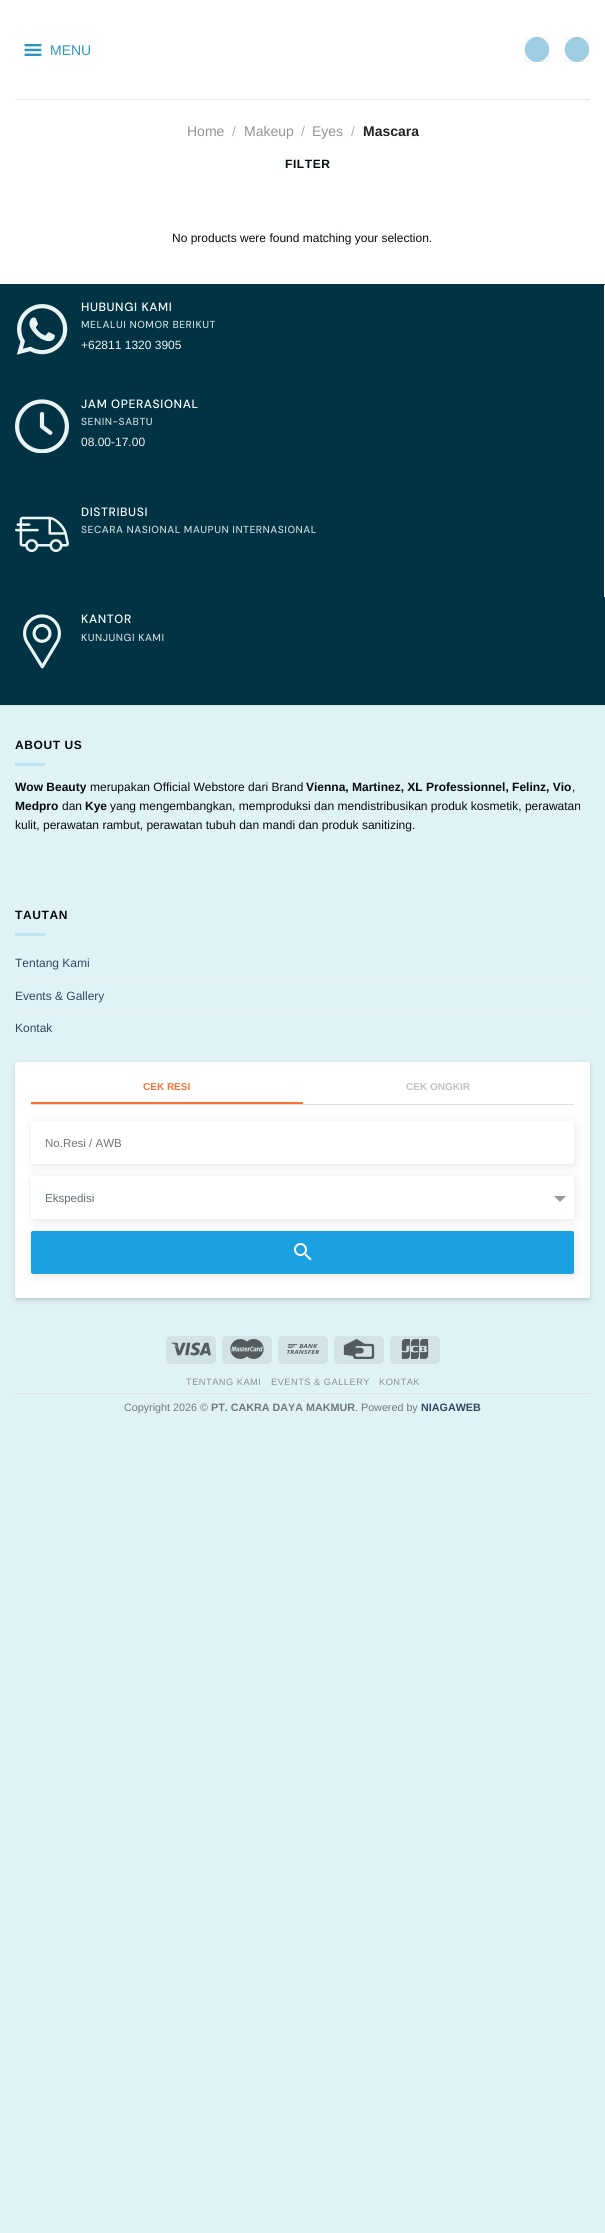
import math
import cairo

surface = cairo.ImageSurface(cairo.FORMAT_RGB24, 605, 2233)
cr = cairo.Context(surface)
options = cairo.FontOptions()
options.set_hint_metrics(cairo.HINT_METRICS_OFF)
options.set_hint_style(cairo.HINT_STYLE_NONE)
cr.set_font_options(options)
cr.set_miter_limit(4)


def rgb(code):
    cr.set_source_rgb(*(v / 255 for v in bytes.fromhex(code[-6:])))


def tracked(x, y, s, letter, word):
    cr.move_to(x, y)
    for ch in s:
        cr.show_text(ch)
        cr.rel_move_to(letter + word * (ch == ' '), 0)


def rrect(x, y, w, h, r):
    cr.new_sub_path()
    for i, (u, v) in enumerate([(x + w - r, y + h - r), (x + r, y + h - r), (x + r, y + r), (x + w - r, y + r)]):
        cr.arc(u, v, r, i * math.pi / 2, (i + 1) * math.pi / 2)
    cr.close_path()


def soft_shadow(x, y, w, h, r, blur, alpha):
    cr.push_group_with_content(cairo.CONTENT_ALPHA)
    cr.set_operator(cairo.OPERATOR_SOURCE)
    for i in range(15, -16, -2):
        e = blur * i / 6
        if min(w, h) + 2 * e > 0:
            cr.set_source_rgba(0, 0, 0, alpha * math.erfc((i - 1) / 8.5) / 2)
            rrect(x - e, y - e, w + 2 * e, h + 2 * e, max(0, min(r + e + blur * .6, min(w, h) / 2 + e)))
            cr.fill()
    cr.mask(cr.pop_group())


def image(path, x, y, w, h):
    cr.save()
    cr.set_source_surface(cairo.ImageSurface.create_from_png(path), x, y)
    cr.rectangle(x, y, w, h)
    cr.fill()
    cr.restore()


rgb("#dff2f6")
cr.paint()
rgb("#ffffff")
cr.rectangle(0, 0, 605, 284)
cr.fill()
image("img/1.png", 24, 44, 18, 12)
rgb("#9dcde1")
rrect(525, 37, 24, 25, 12)
cr.fill()
cr.rectangle(525.5, 37.5, 23, 24)
cr.set_source_rgba(0, 0, 0, 0.05)
cr.set_line_width(1)
cr.stroke()
rgb("#9dcde1")
rrect(565, 37, 24, 25, 12)
cr.fill()
cr.rectangle(565.5, 37.5, 23, 24)
cr.set_source_rgba(0, 0, 0, 0.05)
cr.stroke()
for x, y, w, h, color in [
    (15, 99, 575, 1, "#e6e7e7"),
    (0, 285, 605, 420, "#003444"),
    (0, 284, 605, 1, "#003141"),
    (604, 285, 1, 312, "#ffffff"),
]:
    rgb(color)
    cr.rectangle(x, y, w, h)
    cr.fill()
image("img/2.png", 16, 304, 52, 51)
image("img/3.png", 15, 399, 54, 54)
image("img/4.png", 15, 516, 54, 36)
image("img/5.png", 23, 614, 38, 55)
for x, y, w, h, color in [
    (0, 705, 605, 1, "#d4e6ea"),
    (15, 763, 30, 3, "#bee5f4"),
    (15, 933, 30, 3, "#bee5f4"),
    (15, 980, 575, 1, "#ececec"),
    (15, 1012, 575, 1, "#ececec"),
]:
    rgb(color)
    cr.rectangle(x, y, w, h)
    cr.fill()
rgb("#000000")
soft_shadow(15, 1063, 575, 236, 2, 1.5, 0.08)
soft_shadow(15, 1065, 575, 236, 2, 3, 0.1)
rgb("#ffffff")
rrect(15, 1062, 575, 236, 2)
cr.fill()
rgb("#fd7034")
cr.rectangle(31, 1102, 272, 2)
cr.fill()
rgb("#dfdfdf")
cr.rectangle(31, 1104, 543, 1)
cr.fill()
rgb("#000000")
soft_shadow(32, 1123, 543, 43, 2, 5, 0.1)
rgb("#ffffff")
rrect(31, 1121, 543, 43, 2)
cr.fill()
rgb("#000000")
soft_shadow(32, 1178, 543, 43, 2, 5, 0.1)
rgb("#ffffff")
rrect(31, 1176, 543, 43, 2)
cr.fill()
rgb("#999999")
cr.new_path()
cr.move_to(554, 1196)
cr.line_to(566, 1196)
cr.line_to(560, 1202)
cr.close_path()
cr.fill()
rgb("#000000")
soft_shadow(32, 1233, 543, 43, 2, 5, 0.1)
rgb("#1ba0e2")
rrect(31, 1231, 543, 43, 2)
cr.fill()
image("img/6.png", 294, 1243, 18, 18)
rgb("#d2e3e7")
rrect(166, 1336, 50, 28, 5)
cr.fill()
image("img/7.png", 171, 1342, 40, 14)
rrect(222, 1336, 50, 28, 5)
cr.fill()
image("img/8.png", 230, 1339, 34, 20)
rrect(278, 1336, 50, 28, 5)
cr.fill()
image("img/9.png", 287, 1344, 32, 10)
rrect(334, 1336, 50, 28, 5)
cr.fill()
image("img/10.png", 343, 1339, 32, 20)
rrect(390, 1336, 50, 28, 5)
cr.fill()
image("img/11.png", 401, 1339, 28, 20)
rgb("#dde1e2")
cr.rectangle(15, 1393, 575, 1)
cr.fill()
cr.select_font_face("Liberation Sans")
cr.set_font_size(14)
rgb("#2c96c3")
cr.move_to(50, 55)
cr.show_text("MENU")
rgb("#949494")
cr.move_to(187, 136)
cr.show_text("Home")
rgb("#b2b2b2")
cr.move_to(232, 136)
cr.show_text("/")
rgb("#949494")
cr.move_to(244, 136)
cr.show_text("Makeup")
rgb("#b2b2b2")
cr.move_to(301, 136)
cr.show_text("/")
rgb("#949494")
cr.move_to(312, 136)
cr.show_text("Eyes")
rgb("#b2b2b2")
cr.move_to(351, 136)
cr.show_text("/")
cr.select_font_face("Liberation Sans", cairo.FONT_SLANT_NORMAL, cairo.FONT_WEIGHT_BOLD)
rgb("#222222")
cr.move_to(363, 136)
cr.show_text("Mascara")
cr.set_font_size(12)
rgb("#060a13")
tracked(285, 168, "FILTER", 0.6, 0)
cr.select_font_face("Liberation Sans")
cr.move_to(172, 242)
cr.show_text("No products were found matching your selection.")
cr.select_font_face("DM Sans Medium")
rgb("#ffffff")
tracked(81, 311, "HUBUNGI KAMI", 0.6, 0)
cr.set_font_size(10.2)
rgb("#ccd6da")
tracked(81, 328, "MELALUI NOMOR BERIKUT", 0.5, 0)
cr.select_font_face("Liberation Sans")
cr.set_font_size(12)
rgb("#f1f1f1")
cr.move_to(81, 349)
cr.show_text("+62811 1320 3905")
cr.select_font_face("DM Sans Medium")
rgb("#ffffff")
tracked(81, 408, "JAM OPERASIONAL", 0.6, 0)
cr.set_font_size(10.2)
rgb("#ccd6da")
tracked(81, 425, "SENIN-SABTU", 0.5, 0)
cr.select_font_face("Liberation Sans")
cr.set_font_size(12)
rgb("#f1f1f1")
cr.move_to(81, 446)
cr.show_text("08.00-17.00")
cr.select_font_face("DM Sans Medium")
rgb("#ffffff")
tracked(81, 516, "DISTRIBUSI", 0.6, 0)
cr.set_font_size(10.2)
rgb("#ccd6da")
tracked(81, 533, "SECARA NASIONAL MAUPUN INTERNASIONAL", 0.5, 0)
cr.set_font_size(12)
rgb("#ffffff")
tracked(81, 623, "KANTOR", 0.6, 0)
cr.set_font_size(10.2)
rgb("#ccd6da")
tracked(81, 641, "KUNJUNGI KAMI", 0.5, 0)
cr.select_font_face("Liberation Sans", cairo.FONT_SLANT_NORMAL, cairo.FONT_WEIGHT_BOLD)
cr.set_font_size(12)
rgb("#060a13")
tracked(15, 749, "ABOUT US", 0.6, 0)
cr.move_to(15, 791)
cr.show_text("Wow Beauty")
cr.select_font_face("Liberation Sans")
cr.move_to(90, 791)
cr.show_text("merupakan Official Webstore dari Brand")
cr.select_font_face("Liberation Sans", cairo.FONT_SLANT_NORMAL, cairo.FONT_WEIGHT_BOLD)
cr.move_to(306, 791)
cr.show_text("Vienna, Martinez, XL Professionnel, Felinz, Vio")
cr.select_font_face("Liberation Sans")
cr.move_to(572, 791)
cr.show_text(",")
cr.select_font_face("Liberation Sans", cairo.FONT_SLANT_NORMAL, cairo.FONT_WEIGHT_BOLD)
cr.move_to(15, 810)
cr.show_text("Medpro")
cr.select_font_face("Liberation Sans")
cr.move_to(62, 810)
cr.show_text("dan")
cr.select_font_face("Liberation Sans", cairo.FONT_SLANT_NORMAL, cairo.FONT_WEIGHT_BOLD)
cr.move_to(85, 810)
cr.show_text("Kye")
cr.select_font_face("Liberation Sans")
cr.move_to(110, 810)
cr.show_text("yang mengembangkan, memproduksi dan mendistribusikan produk kosmetik, perawatan")
cr.move_to(15, 829)
cr.show_text("kulit, perawatan rambut, perawatan tubuh dan mandi dan produk sanitizing.")
cr.select_font_face("Liberation Sans", cairo.FONT_SLANT_NORMAL, cairo.FONT_WEIGHT_BOLD)
tracked(15, 919, "TAUTAN", 0.6, 0)
cr.select_font_face("Liberation Sans")
rgb("#334862")
for x, y, s in [
    (15, 967, "Tentang Kami"),
    (15, 1000, "Events & Gallery"),
    (15, 1032, "Kontak"),
]:
    cr.move_to(x, y)
    cr.show_text(s)
cr.select_font_face("Liberation Sans", cairo.FONT_SLANT_NORMAL, cairo.FONT_WEIGHT_BOLD)
cr.set_font_size(10)
rgb("#fd7034")
cr.move_to(143, 1090)
cr.show_text("CEK RESI")
rgb("#c0c0c0")
cr.move_to(406, 1090)
cr.show_text("CEK ONGKIR")
cr.select_font_face("Liberation Sans")
cr.set_font_size(11.5)
rgb("#757575")
cr.move_to(45, 1147)
cr.show_text("No.Resi / AWB")
rgb("#636c72")
cr.move_to(45, 1202)
cr.show_text("Ekspedisi")
cr.set_font_size(9.25)
rgb("#869194")
for x, y, s in [
    (186, 1385, "TENTANG KAMI"),
    (271, 1385, "EVENTS & GALLERY"),
    (379, 1385, "KONTAK"),
]:
    tracked(x, y, s, 0.5, 0)
cr.set_font_size(10.75)
rgb("#70797b")
cr.move_to(124, 1411)
cr.show_text("Copyright 2026 ©")
cr.select_font_face("Liberation Sans", cairo.FONT_SLANT_NORMAL, cairo.FONT_WEIGHT_BOLD)
cr.move_to(211, 1411)
cr.show_text("PT. CAKRA DAYA MAKMUR")
cr.select_font_face("Liberation Sans")
cr.move_to(355, 1411)
cr.show_text(". Powered by")
cr.select_font_face("Liberation Sans", cairo.FONT_SLANT_NORMAL, cairo.FONT_WEIGHT_BOLD)
rgb("#334862")
cr.move_to(421, 1411)
cr.show_text("NIAGAWEB")
surface.write_to_png("page.png")
